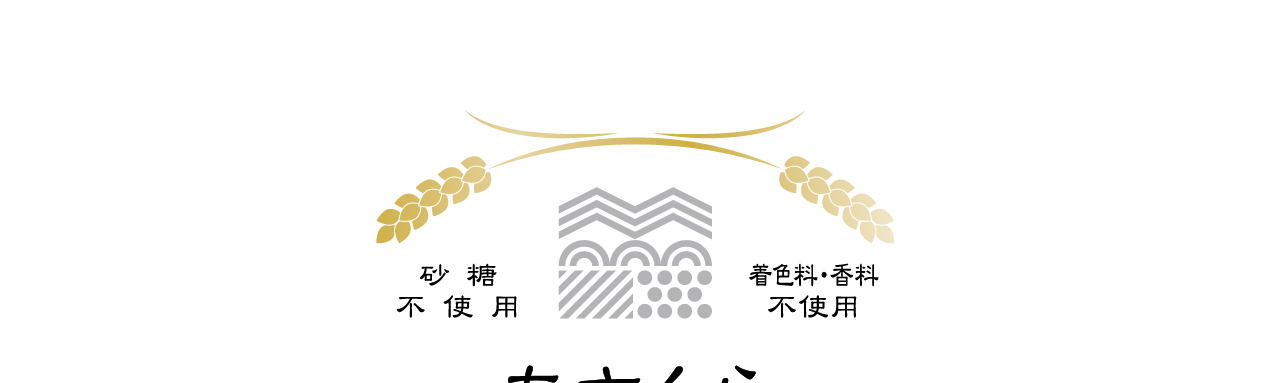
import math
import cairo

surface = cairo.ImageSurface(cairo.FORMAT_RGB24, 1270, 383)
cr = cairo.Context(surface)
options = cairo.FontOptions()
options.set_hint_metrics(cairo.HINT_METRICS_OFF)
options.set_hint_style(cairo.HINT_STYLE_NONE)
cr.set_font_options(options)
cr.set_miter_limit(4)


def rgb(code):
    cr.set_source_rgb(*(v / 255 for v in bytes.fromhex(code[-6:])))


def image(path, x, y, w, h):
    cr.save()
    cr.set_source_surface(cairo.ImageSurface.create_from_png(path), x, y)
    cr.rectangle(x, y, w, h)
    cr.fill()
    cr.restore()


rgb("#ffffff")
cr.paint()
image("img/1.png", 376, 110, 519, 273)
surface.write_to_png("page.png")
